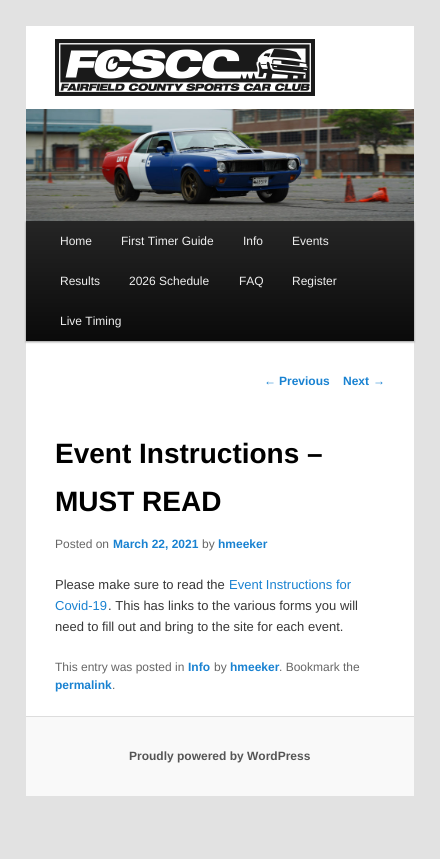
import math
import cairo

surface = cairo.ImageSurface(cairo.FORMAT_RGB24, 440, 859)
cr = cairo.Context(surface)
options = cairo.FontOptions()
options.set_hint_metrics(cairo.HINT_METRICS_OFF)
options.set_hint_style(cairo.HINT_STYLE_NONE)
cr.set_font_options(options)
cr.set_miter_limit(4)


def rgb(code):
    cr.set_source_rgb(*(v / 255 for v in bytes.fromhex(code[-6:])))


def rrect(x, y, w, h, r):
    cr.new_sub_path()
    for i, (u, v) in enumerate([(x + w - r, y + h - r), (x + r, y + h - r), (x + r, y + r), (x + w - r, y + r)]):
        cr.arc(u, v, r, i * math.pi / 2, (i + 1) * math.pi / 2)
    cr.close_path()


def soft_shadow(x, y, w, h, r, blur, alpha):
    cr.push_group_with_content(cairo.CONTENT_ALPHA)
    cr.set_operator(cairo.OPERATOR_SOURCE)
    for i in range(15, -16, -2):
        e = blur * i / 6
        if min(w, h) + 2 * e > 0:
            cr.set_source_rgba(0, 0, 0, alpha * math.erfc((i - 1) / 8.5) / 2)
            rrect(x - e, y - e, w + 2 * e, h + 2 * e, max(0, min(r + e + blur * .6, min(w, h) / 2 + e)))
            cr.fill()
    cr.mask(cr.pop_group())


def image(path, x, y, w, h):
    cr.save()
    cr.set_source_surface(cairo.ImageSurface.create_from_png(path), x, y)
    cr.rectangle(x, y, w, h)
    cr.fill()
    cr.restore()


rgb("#e2e2e2")
cr.paint()
rgb("#ffffff")
cr.rectangle(26, 26, 388, 690)
cr.fill()
image("img/1.png", 55, 39, 260, 57)
rgb("#000000")
soft_shadow(26, 222, 388, 120, 0, 1, 0.4)
image("img/2.png", 26, 109, 388, 112)
gradient = cairo.LinearGradient(220, 221, 220, 341)
gradient.add_color_stop_rgba(0, 0.145, 0.145, 0.145, 1)
gradient.add_color_stop_rgba(1, 0.039, 0.039, 0.039, 1)
cr.set_source(gradient)
cr.rectangle(26, 221, 388, 120)
cr.fill()
rgb("#f9f9f9")
cr.rectangle(26, 717, 388, 79)
cr.fill()
rgb("#dddddd")
cr.rectangle(26, 716, 388, 1)
cr.fill()
cr.select_font_face("Liberation Sans")
cr.set_font_size(12)
rgb("#eeeeee")
for x, y, s in [
    (60, 245, "Home"),
    (121, 245, "First Timer Guide"),
    (243, 245, "Info"),
    (292, 245, "Events"),
    (60, 285, "Results"),
    (129, 285, "2026 Schedule"),
    (239, 285, "FAQ"),
    (292, 285, "Register"),
    (60, 325, "Live Timing"),
]:
    cr.move_to(x, y)
    cr.show_text(s)
rgb("#1982d1")
cr.move_to(264, 385)
cr.show_text("←")
cr.select_font_face("Liberation Sans", cairo.FONT_SLANT_NORMAL, cairo.FONT_WEIGHT_BOLD)
cr.move_to(279, 385)
cr.show_text("Previous")
cr.move_to(343, 385)
cr.show_text("Next")
cr.select_font_face("Liberation Sans")
cr.move_to(373, 385)
cr.show_text("→")
cr.select_font_face("Liberation Sans", cairo.FONT_SLANT_NORMAL, cairo.FONT_WEIGHT_BOLD)
cr.set_font_size(28)
rgb("#000000")
cr.move_to(55, 463)
cr.show_text("Event Instructions –")
cr.move_to(55, 511)
cr.show_text("MUST READ")
cr.select_font_face("Liberation Sans")
cr.set_font_size(12)
rgb("#666666")
cr.move_to(55, 548)
cr.show_text("Posted on")
cr.select_font_face("Liberation Sans", cairo.FONT_SLANT_NORMAL, cairo.FONT_WEIGHT_BOLD)
rgb("#1982d1")
cr.move_to(113, 548)
cr.show_text("March 22, 2021")
cr.select_font_face("Liberation Sans")
rgb("#666666")
cr.move_to(202, 548)
cr.show_text("by")
cr.select_font_face("Liberation Sans", cairo.FONT_SLANT_NORMAL, cairo.FONT_WEIGHT_BOLD)
rgb("#1982d1")
cr.move_to(218, 548)
cr.show_text("hmeeker")
cr.select_font_face("Liberation Sans")
cr.set_font_size(13)
rgb("#373737")
cr.move_to(55, 589)
cr.show_text("Please make sure to read the")
rgb("#1982d1")
cr.move_to(229, 589)
cr.show_text("Event Instructions for")
cr.move_to(55, 610)
cr.show_text("Covid-19")
rgb("#373737")
cr.move_to(108, 610)
cr.show_text(". This has links to the various forms you will")
cr.move_to(55, 631)
cr.show_text("need to fill out and bring to the site for each event.")
cr.set_font_size(12)
rgb("#666666")
cr.move_to(55, 671)
cr.show_text("This entry was posted in")
cr.select_font_face("Liberation Sans", cairo.FONT_SLANT_NORMAL, cairo.FONT_WEIGHT_BOLD)
rgb("#1982d1")
cr.move_to(188, 671)
cr.show_text("Info")
cr.select_font_face("Liberation Sans")
rgb("#666666")
cr.move_to(214, 671)
cr.show_text("by")
cr.select_font_face("Liberation Sans", cairo.FONT_SLANT_NORMAL, cairo.FONT_WEIGHT_BOLD)
rgb("#1982d1")
cr.move_to(230, 671)
cr.show_text("hmeeker")
cr.select_font_face("Liberation Sans")
rgb("#666666")
cr.move_to(279, 671)
cr.show_text(". Bookmark the")
cr.select_font_face("Liberation Sans", cairo.FONT_SLANT_NORMAL, cairo.FONT_WEIGHT_BOLD)
rgb("#1982d1")
cr.move_to(55, 689)
cr.show_text("permalink")
cr.select_font_face("Liberation Sans")
rgb("#666666")
cr.move_to(112, 689)
cr.show_text(".")
cr.select_font_face("Liberation Sans", cairo.FONT_SLANT_NORMAL, cairo.FONT_WEIGHT_BOLD)
rgb("#555555")
cr.move_to(129, 760)
cr.show_text("Proudly powered by WordPress")
surface.write_to_png("page.png")
